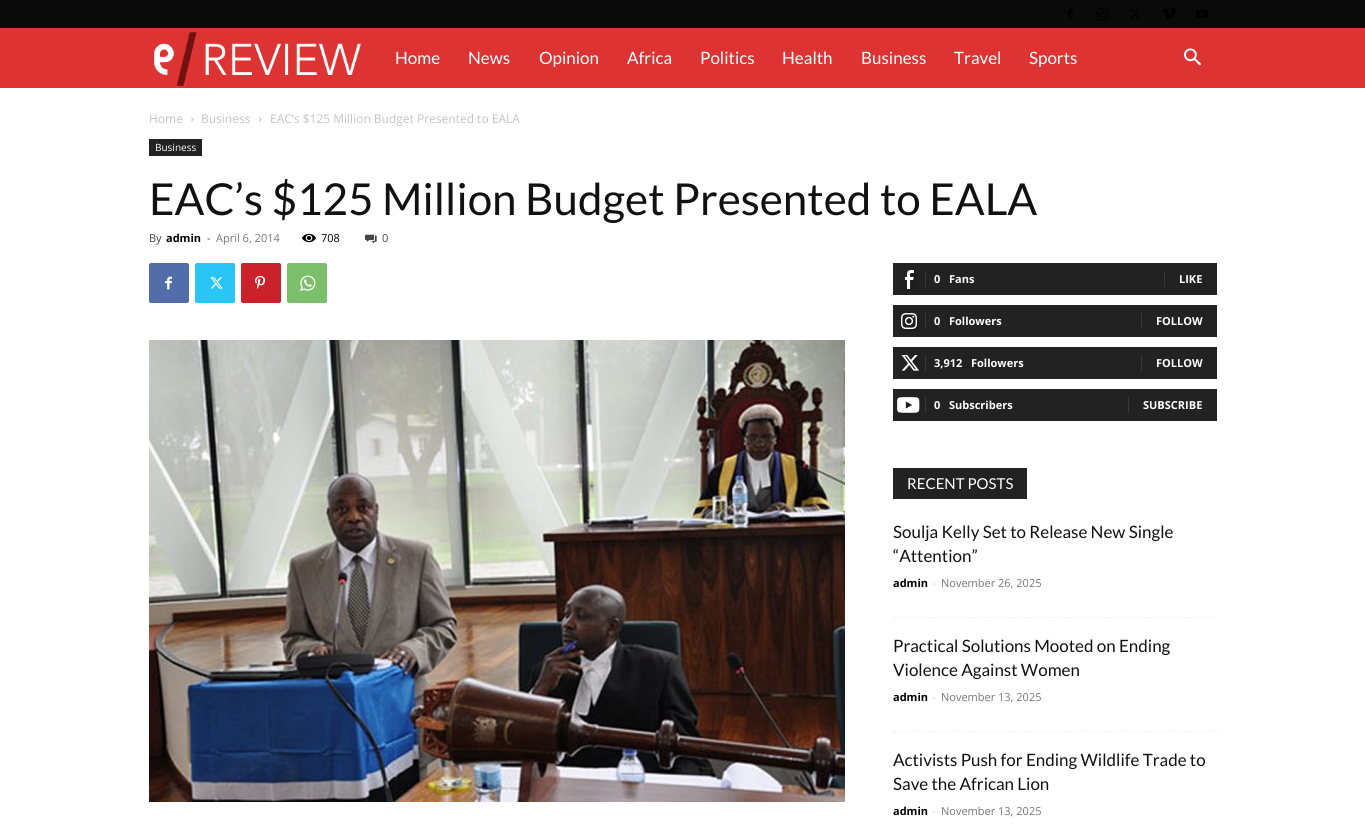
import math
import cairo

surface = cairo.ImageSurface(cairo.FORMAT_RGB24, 1365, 834)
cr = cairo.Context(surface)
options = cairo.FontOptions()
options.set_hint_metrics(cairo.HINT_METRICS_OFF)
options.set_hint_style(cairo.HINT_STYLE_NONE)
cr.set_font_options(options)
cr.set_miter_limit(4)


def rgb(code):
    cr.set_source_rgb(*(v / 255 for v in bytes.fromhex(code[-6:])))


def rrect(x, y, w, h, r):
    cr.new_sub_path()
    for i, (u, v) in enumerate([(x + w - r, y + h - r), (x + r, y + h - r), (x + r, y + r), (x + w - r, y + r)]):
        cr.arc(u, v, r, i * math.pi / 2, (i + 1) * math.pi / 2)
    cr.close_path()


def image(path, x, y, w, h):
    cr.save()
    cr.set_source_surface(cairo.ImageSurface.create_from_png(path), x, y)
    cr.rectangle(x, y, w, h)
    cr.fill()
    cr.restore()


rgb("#ffffff")
cr.paint()
rgb("#0a0a0a")
cr.rectangle(0, 0, 1365, 28)
cr.fill()
image("img/1.png", 1067, 8, 6, 11)
image("img/2.png", 1096, 8, 13, 13)
image("img/3.png", 1130, 9, 10, 10)
image("img/4.png", 1162, 8, 14, 12)
image("img/5.png", 1196, 10, 12, 8)
rgb("#dd3333")
cr.rectangle(0, 28, 1365, 60)
cr.fill()
image("img/6.png", 154, 32, 207, 54)
image("img/7.png", 1184, 48, 17, 18)
image("img/8.png", 191, 117, 3, 5)
image("img/8.png", 259, 117, 3, 5)
rgb("#222222")
cr.rectangle(149, 139, 53, 17)
cr.fill()
image("img/9.png", 302, 233, 14, 10)
image("img/10.png", 365, 234, 12, 10)
rgb("#516eab")
rrect(149, 263, 40, 40, 2)
cr.fill()
image("img/11.png", 165, 276, 7, 14)
rgb("#29c5f6")
rrect(195, 263, 40, 40, 2)
cr.fill()
image("img/12.png", 210, 277, 13, 12)
rgb("#ca212a")
rrect(241, 263, 40, 40, 2)
cr.fill()
image("img/13.png", 255, 275, 11, 14)
rgb("#7bbf6a")
rrect(287, 263, 40, 40, 2)
cr.fill()
image("img/14.png", 300, 275, 16, 16)
image("img/15.png", 149, 340, 696, 462)
rgb("#222222")
cr.rectangle(893, 263, 324, 32)
cr.fill()
image("img/16.png", 905, 270, 13, 21)
for x, y, w, h, color in [
    (925, 271, 1, 16, "#383838"),
    (1164, 271, 1, 16, "#383838"),
    (893, 305, 324, 32, "#222222"),
]:
    rgb(color)
    cr.rectangle(x, y, w, h)
    cr.fill()
image("img/17.png", 901, 313, 18, 18)
for x, y, w, h, color in [
    (925, 313, 1, 16, "#383838"),
    (1141, 313, 1, 16, "#383838"),
    (893, 347, 324, 32, "#222222"),
]:
    rgb(color)
    cr.rectangle(x, y, w, h)
    cr.fill()
image("img/18.png", 901, 355, 18, 16)
for x, y, w, h, color in [
    (925, 355, 1, 16, "#383838"),
    (1141, 355, 1, 16, "#383838"),
    (893, 389, 324, 32, "#222222"),
]:
    rgb(color)
    cr.rectangle(x, y, w, h)
    cr.fill()
image("img/19.png", 897, 397, 23, 18)
for x, y, w, h, color in [
    (925, 397, 1, 16, "#383838"),
    (1128, 397, 1, 16, "#383838"),
    (893, 468, 134, 31, "#222222"),
]:
    rgb(color)
    cr.rectangle(x, y, w, h)
    cr.fill()
cr.new_path()
cr.move_to(893, 617.5)
cr.line_to(1217, 617.5)
rgb("#f2f2f2")
cr.set_line_width(1)
cr.set_dash([3, 2.02])
cr.stroke()
cr.new_path()
cr.move_to(893, 731.5)
cr.line_to(1217, 731.5)
cr.stroke()
cr.select_font_face("Lato")
cr.set_font_size(17)
rgb("#ffffff")
for x, y, s in [
    (395, 64, "Home"),
    (468, 64, "News"),
    (539, 64, "Opinion"),
    (627, 64, "Africa"),
    (700, 64, "Politics"),
    (782, 64, "Health"),
    (861, 64, "Business"),
    (954, 64, "Travel"),
    (1029, 64, "Sports"),
]:
    cr.move_to(x, y)
    cr.show_text(s)
cr.select_font_face("Open Sans")
cr.set_font_size(12)
rgb("#c3c3c3")
for x, y, s in [
    (149, 123, "Home"),
    (201, 123, "Business"),
    (270, 123, "EAC’s $125 Million Budget Presented to EALA"),
]:
    cr.move_to(x, y)
    cr.show_text(s)
cr.set_font_size(10)
rgb("#ffffff")
cr.move_to(155, 151)
cr.show_text("Business")
cr.select_font_face("Lato")
cr.set_font_size(44)
rgb("#111111")
cr.move_to(149, 215)
cr.show_text("EAC’s $125 Million Budget Presented to EALA")
cr.select_font_face("Open Sans")
cr.set_font_size(11)
rgb("#444444")
cr.move_to(149, 242)
cr.show_text("By")
cr.select_font_face("Open Sans", cairo.FONT_SLANT_NORMAL, cairo.FONT_WEIGHT_BOLD)
rgb("#000000")
cr.move_to(166, 242)
cr.show_text("admin")
cr.select_font_face("Open Sans")
rgb("#444444")
cr.move_to(207, 242)
cr.show_text("-")
rgb("#767676")
cr.move_to(216, 242)
cr.show_text("April 6, 2014")
rgb("#000000")
cr.move_to(321, 242)
cr.show_text("708")
rgb("#444444")
cr.move_to(382, 242)
cr.show_text("0")
cr.select_font_face("Open Sans", cairo.FONT_SLANT_NORMAL, cairo.FONT_WEIGHT_BOLD)
rgb("#ffffff")
for x, y, s in [
    (934, 283, "0"),
    (949, 283, "Fans"),
    (1179, 283, "LIKE"),
    (934, 325, "0"),
    (949, 325, "Followers"),
    (1156, 325, "FOLLOW"),
    (934, 367, "3,912"),
    (971, 367, "Followers"),
    (1156, 367, "FOLLOW"),
    (934, 409, "0"),
    (949, 409, "Subscribers"),
    (1143, 409, "SUBSCRIBE"),
]:
    cr.move_to(x, y)
    cr.show_text(s)
cr.select_font_face("Lato")
cr.set_font_size(15)
cr.move_to(907, 489)
cr.show_text("RECENT POSTS")
cr.set_font_size(17)
rgb("#111111")
cr.move_to(893, 538)
cr.show_text("Soulja Kelly Set to Release New Single")
cr.move_to(893, 562)
cr.show_text("“Attention”")
cr.select_font_face("Open Sans", cairo.FONT_SLANT_NORMAL, cairo.FONT_WEIGHT_BOLD)
cr.set_font_size(11)
rgb("#000000")
cr.move_to(893, 587)
cr.show_text("admin")
cr.select_font_face("Open Sans")
rgb("#cccccc")
cr.move_to(932, 587)
cr.show_text("-")
rgb("#767676")
cr.move_to(941, 587)
cr.show_text("November 26, 2025")
cr.select_font_face("Lato")
cr.set_font_size(17)
rgb("#111111")
cr.move_to(893, 652)
cr.show_text("Practical Solutions Mooted on Ending")
cr.move_to(893, 676)
cr.show_text("Violence Against Women")
cr.select_font_face("Open Sans", cairo.FONT_SLANT_NORMAL, cairo.FONT_WEIGHT_BOLD)
cr.set_font_size(11)
rgb("#000000")
cr.move_to(893, 701)
cr.show_text("admin")
cr.select_font_face("Open Sans")
rgb("#cccccc")
cr.move_to(932, 701)
cr.show_text("-")
rgb("#767676")
cr.move_to(941, 701)
cr.show_text("November 13, 2025")
cr.select_font_face("Lato")
cr.set_font_size(17)
rgb("#111111")
cr.move_to(893, 766)
cr.show_text("Activists Push for Ending Wildlife Trade to")
cr.move_to(893, 790)
cr.show_text("Save the African Lion")
cr.select_font_face("Open Sans", cairo.FONT_SLANT_NORMAL, cairo.FONT_WEIGHT_BOLD)
cr.set_font_size(11)
rgb("#000000")
cr.move_to(893, 815)
cr.show_text("admin")
cr.select_font_face("Open Sans")
rgb("#cccccc")
cr.move_to(932, 815)
cr.show_text("-")
rgb("#767676")
cr.move_to(941, 815)
cr.show_text("November 13, 2025")
surface.write_to_png("page.png")
